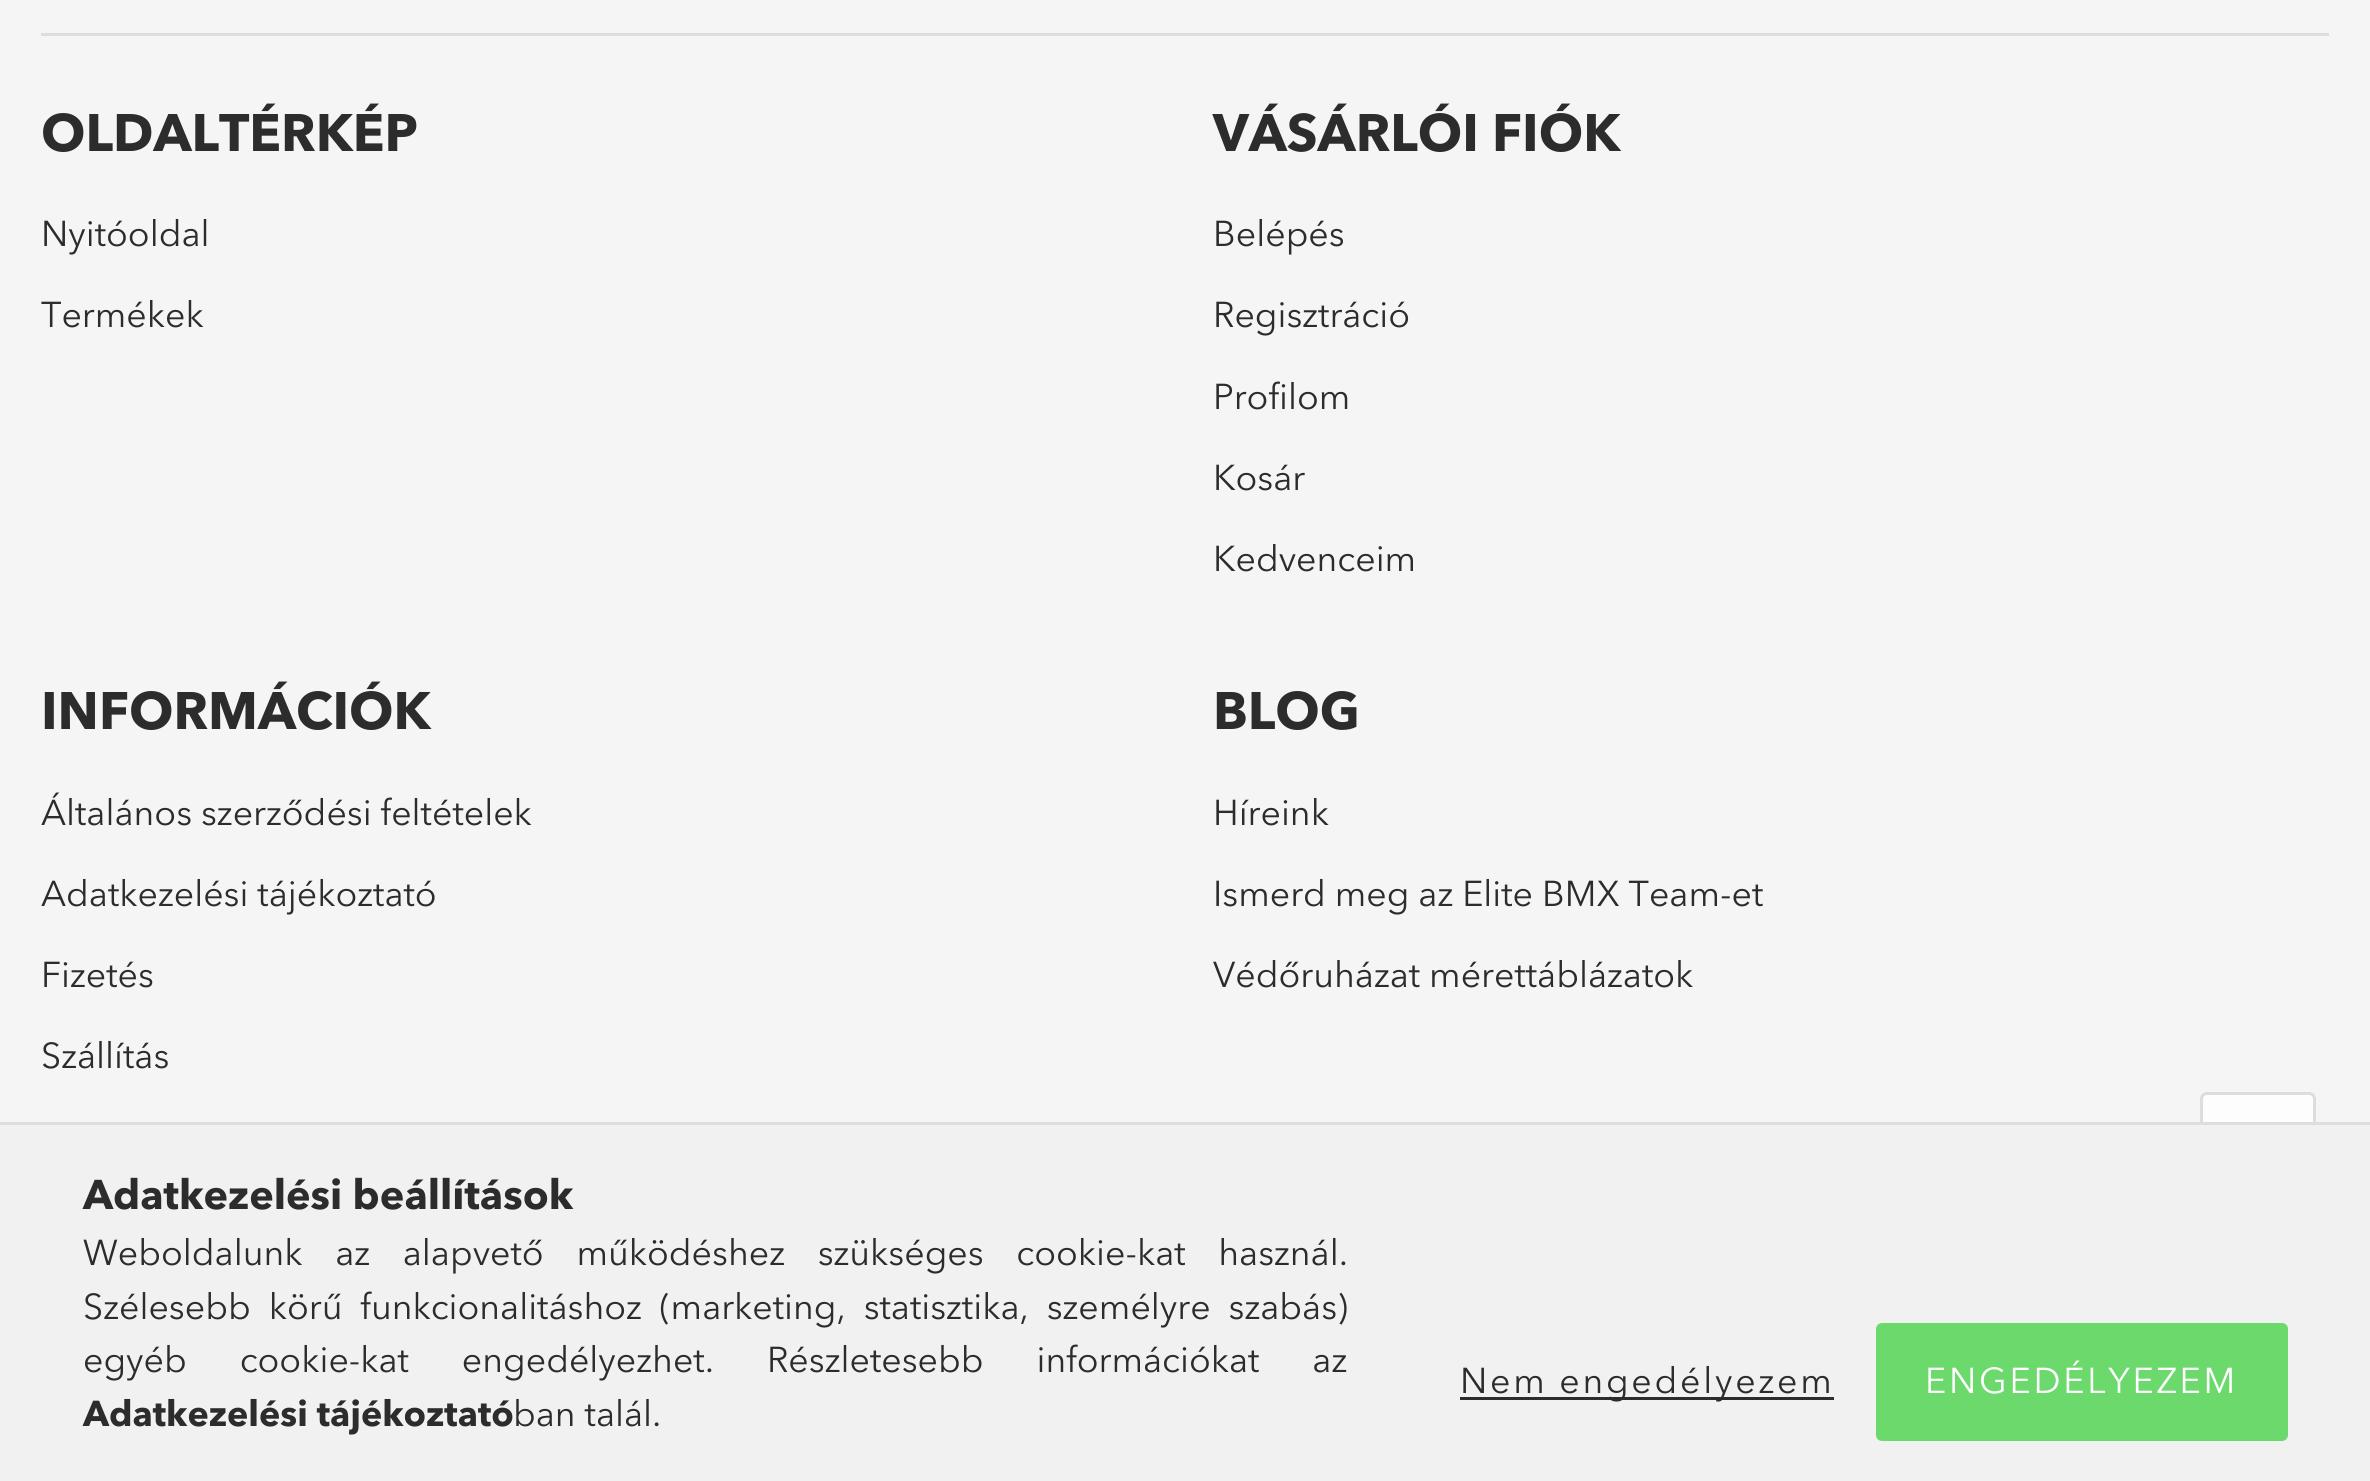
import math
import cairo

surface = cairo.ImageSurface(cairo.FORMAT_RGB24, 2370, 1481)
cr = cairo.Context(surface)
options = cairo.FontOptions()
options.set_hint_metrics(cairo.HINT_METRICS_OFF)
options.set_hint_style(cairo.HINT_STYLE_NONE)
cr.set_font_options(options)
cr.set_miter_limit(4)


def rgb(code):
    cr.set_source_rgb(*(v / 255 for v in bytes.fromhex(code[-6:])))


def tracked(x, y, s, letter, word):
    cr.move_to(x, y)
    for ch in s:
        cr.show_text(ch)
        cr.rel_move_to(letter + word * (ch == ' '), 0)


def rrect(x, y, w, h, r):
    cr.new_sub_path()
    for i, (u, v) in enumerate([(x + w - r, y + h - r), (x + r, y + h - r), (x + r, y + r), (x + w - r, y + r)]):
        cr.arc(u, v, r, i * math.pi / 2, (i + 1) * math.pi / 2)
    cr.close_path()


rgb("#f5f5f5")
cr.paint()
rgb("#dddddd")
cr.rectangle(41, 33, 2288, 3)
cr.fill()
rgb("#fdfdfd")
rrect(2201.5, 1093.5, 113, 112, 5.5)
cr.fill_preserve()
rgb("#dddddd")
cr.set_line_width(3)
cr.stroke()
for x, y, w, h, color in [
    (0, 1125, 2370, 356, "#f1f1f1"),
    (0, 1122, 2370, 3, "#dddddd"),
    (1460, 1397, 374, 3, "#2c2c2c"),
]:
    rgb(color)
    cr.rectangle(x, y, w, h)
    cr.fill()
rgb("#6cd96c")
rrect(1877.5, 1324.5, 409, 115, 4.5)
cr.fill_preserve()
cr.stroke()
cr.select_font_face("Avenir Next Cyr", cairo.FONT_SLANT_NORMAL, cairo.FONT_WEIGHT_BOLD)
cr.set_font_size(52.25)
rgb("#2c2c2c")
cr.move_to(41, 151)
cr.show_text("OLDALTÉRKÉP")
cr.select_font_face("Avenir Next Cyr")
cr.set_font_size(35.75)
cr.move_to(41, 246)
cr.show_text("Nyitóoldal")
cr.move_to(41, 327)
cr.show_text("Termékek")
cr.select_font_face("Avenir Next Cyr", cairo.FONT_SLANT_NORMAL, cairo.FONT_WEIGHT_BOLD)
cr.set_font_size(52.25)
cr.move_to(1213, 151)
cr.show_text("VÁSÁRLÓI FIÓK")
cr.select_font_face("Avenir Next Cyr")
cr.set_font_size(35.75)
for x, y, s in [
    (1213, 246, "Belépés"),
    (1213, 327, "Regisztráció"),
    (1213, 409, "Profilom"),
    (1213, 490, "Kosár"),
    (1213, 571, "Kedvenceim"),
]:
    cr.move_to(x, y)
    cr.show_text(s)
cr.select_font_face("Avenir Next Cyr", cairo.FONT_SLANT_NORMAL, cairo.FONT_WEIGHT_BOLD)
cr.set_font_size(52.25)
cr.move_to(41, 729)
cr.show_text("INFORMÁCIÓK")
cr.select_font_face("Avenir Next Cyr")
cr.set_font_size(35.75)
for x, y, s in [
    (41, 825, "Általános szerződési feltételek"),
    (41, 906, "Adatkezelési tájékoztató"),
    (41, 987, "Fizetés"),
    (41, 1068, "Szállítás"),
]:
    cr.move_to(x, y)
    cr.show_text(s)
cr.select_font_face("Avenir Next Cyr", cairo.FONT_SLANT_NORMAL, cairo.FONT_WEIGHT_BOLD)
cr.set_font_size(52.25)
cr.move_to(1213, 729)
cr.show_text("BLOG")
cr.select_font_face("Avenir Next Cyr")
cr.set_font_size(35.75)
for x, y, s in [
    (1213, 825, "Híreink"),
    (1213, 906, "Ismerd meg az Elite BMX Team-et"),
    (1213, 987, "Védőruházat mérettáblázatok"),
]:
    cr.move_to(x, y)
    cr.show_text(s)
cr.select_font_face("Avenir Next Cyr", cairo.FONT_SLANT_NORMAL, cairo.FONT_WEIGHT_BOLD)
cr.set_font_size(41.25)
cr.move_to(83, 1209)
cr.show_text("Adatkezelési beállítások")
cr.select_font_face("Avenir Next Cyr")
cr.set_font_size(35.75)
tracked(83, 1265, "Weboldalunk az alapvető működéshez szükséges cookie-kat használ.", 0, 23.75)
tracked(83, 1319, "Szélesebb körű funkcionalitáshoz (marketing, statisztika, személyre szabás)", 0, 9)
tracked(83, 1372, "egyéb cookie-kat engedélyezhet. Részletesebb információkat az", 0, 44)
cr.select_font_face("Avenir Next Cyr", cairo.FONT_SLANT_NORMAL, cairo.FONT_WEIGHT_BOLD)
cr.move_to(83, 1426)
cr.show_text("Adatkezelési tájékoztató")
cr.select_font_face("Avenir Next Cyr")
cr.move_to(513, 1426)
cr.show_text("ban talál.")
tracked(1460, 1393, "Nem engedélyezem", 2.75, 0)
rgb("#ffffff")
tracked(1925, 1393, "ENGEDÉLYEZEM", 2.75, 0)
surface.write_to_png("page.png")
